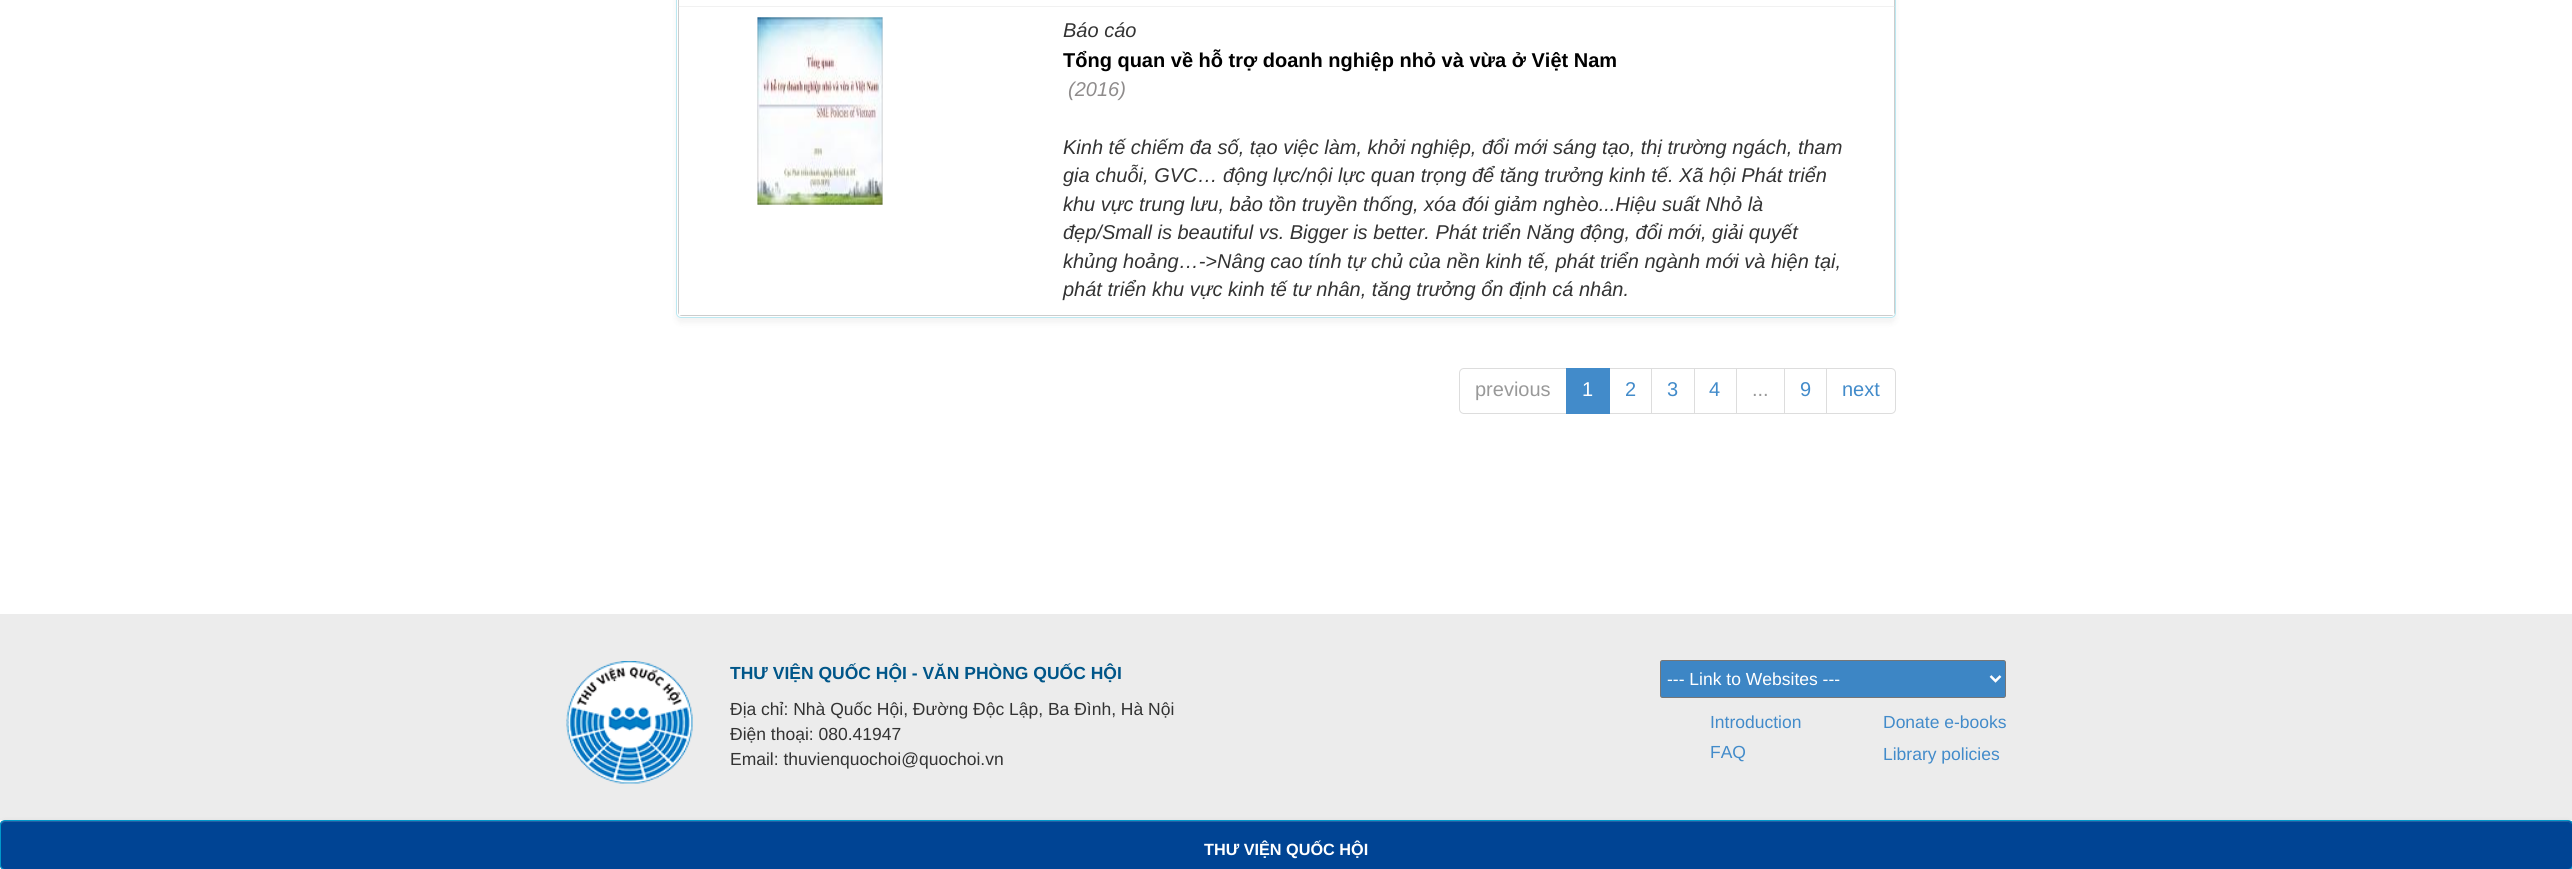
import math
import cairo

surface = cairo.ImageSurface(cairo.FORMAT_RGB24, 2572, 869)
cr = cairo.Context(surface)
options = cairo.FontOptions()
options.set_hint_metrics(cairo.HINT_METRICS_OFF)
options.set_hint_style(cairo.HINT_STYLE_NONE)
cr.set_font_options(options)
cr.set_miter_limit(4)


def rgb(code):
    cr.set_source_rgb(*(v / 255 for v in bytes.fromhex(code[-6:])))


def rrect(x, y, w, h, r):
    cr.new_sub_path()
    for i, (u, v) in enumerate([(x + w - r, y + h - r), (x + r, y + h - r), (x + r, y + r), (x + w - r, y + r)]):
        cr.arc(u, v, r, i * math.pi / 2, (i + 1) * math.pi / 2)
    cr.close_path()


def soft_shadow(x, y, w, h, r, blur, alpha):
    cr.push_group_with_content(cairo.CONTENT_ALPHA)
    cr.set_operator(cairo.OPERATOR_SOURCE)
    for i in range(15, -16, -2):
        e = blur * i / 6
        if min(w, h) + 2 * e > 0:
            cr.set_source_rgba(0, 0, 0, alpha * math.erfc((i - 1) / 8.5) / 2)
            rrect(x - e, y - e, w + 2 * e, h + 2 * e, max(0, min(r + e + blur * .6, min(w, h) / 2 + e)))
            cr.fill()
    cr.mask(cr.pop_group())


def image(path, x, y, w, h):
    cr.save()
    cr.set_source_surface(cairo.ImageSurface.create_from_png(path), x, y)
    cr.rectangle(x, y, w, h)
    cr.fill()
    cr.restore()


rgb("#ffffff")
cr.paint()
rgb("#000000")
soft_shadow(676, -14, 1220, 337, 5, 3, 0.05)
rgb("#ffffff")
rrect(676, -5, 1220, 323, 5)
cr.fill()
rgb("#f1f1f1")
cr.rectangle(678, 6, 1217, 1)
cr.fill()
rrect(676.5, -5.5, 1219, 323, 4.5)
rgb("#bce8f1")
cr.set_line_width(1)
cr.stroke()
cr.save()
rrect(678, -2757, 1217, 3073, 4)
cr.clip()
rgb("#cccccc")
cr.rectangle(1894, 0, 1, 316)
cr.fill()
cr.restore()
rgb("#d3d3d3")
cr.rectangle(1894, 6, 1, 1)
cr.fill()
cr.save()
rrect(678, -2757, 1217, 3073, 4)
cr.clip()
rgb("#cccccc")
cr.rectangle(678, 315, 1217, 1)
cr.fill()
cr.rectangle(678, 0, 1, 316)
cr.fill()
cr.restore()
cr.rectangle(678, 6, 1, 1)
cr.fill()
image("img/1.png", 757, 17, 126, 188)
cr.new_path()
cr.move_to(1464, 368.5)
cr.line_to(1567.5, 368.5)
cr.line_to(1567.5, 413.5)
cr.line_to(1464, 413.5)
cr.curve_to(1461.5, 413.5, 1459.5, 411.5, 1459.5, 409)
cr.line_to(1459.5, 373)
cr.curve_to(1459.5, 370.5, 1461.5, 368.5, 1464, 368.5)
cr.close_path()
rgb("#dddddd")
cr.stroke()
cr.rectangle(1609.5, 368.5, 43, 45)
cr.stroke()
rgb("#428bca")
cr.rectangle(1566, 368, 44, 46)
cr.fill()
rgb("#ffffff")
cr.rectangle(1652, 369, 1, 44)
cr.fill()
cr.rectangle(1651.5, 368.5, 43, 45)
rgb("#dddddd")
cr.stroke()
cr.rectangle(1694.5, 368.5, 43, 45)
cr.stroke()
rgb("#ffffff")
cr.rectangle(1737, 369, 1, 44)
cr.fill()
cr.rectangle(1736.5, 368.5, 48, 45)
rgb("#dddddd")
cr.stroke()
cr.rectangle(1784.5, 368.5, 43, 45)
cr.stroke()
rgb("#ffffff")
cr.new_path()
cr.move_to(1826.5, 368.5)
cr.line_to(1891, 368.5)
cr.curve_to(1893.5, 368.5, 1895.5, 370.5, 1895.5, 373)
cr.line_to(1895.5, 409)
cr.curve_to(1895.5, 411.5, 1893.5, 413.5, 1891, 413.5)
cr.line_to(1826.5, 413.5)
cr.close_path()
cr.fill_preserve()
rgb("#dddddd")
cr.stroke()
rgb("#ececec")
cr.rectangle(0, 614, 2572, 206)
cr.fill()
image("img/2.png", 566, 661, 127, 123)
rgb("#3d86c5")
rrect(1660.5, 660.5, 345, 37, 2)
cr.fill_preserve()
rgb("#767676")
cr.stroke()
cr.new_path()
cr.move_to(1990.5, 676)
cr.line_to(1995.5, 681)
cr.line_to(2000.5, 676)
rgb("#ffffff")
cr.set_line_width(2.5)
cr.stroke()
rgb("#000000")
soft_shadow(0, 821, 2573, 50, 5, 3, 0.07)
cr.save()
rrect(0, 820, 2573, 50, 5)
cr.clip()
rgb("#004494")
cr.rectangle(0, 821, 2572, 48)
cr.fill()
cr.restore()
rgb("#2660a4")
cr.new_path()
cr.move_to(5, 822)
cr.line_to(2568, 822)
cr.curve_to(2570, 822, 2571, 824, 2571, 826)
cr.curve_to(2571, 823, 2570, 821, 2567, 821)
cr.line_to(5, 821)
cr.curve_to(2, 821, 1, 823, 1, 826)
cr.curve_to(1, 824, 3, 822, 5, 822)
cr.close_path()
cr.fill()
rrect(0.5, 820.5, 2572, 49, 4.5)
rgb("#0099cb")
cr.set_line_width(1)
cr.stroke()
cr.select_font_face("Liberation Sans", cairo.FONT_SLANT_ITALIC)
cr.set_font_size(20)
rgb("#333333")
cr.move_to(1063, 37)
cr.show_text("Báo cáo")
cr.select_font_face("Liberation Sans", cairo.FONT_SLANT_NORMAL, cairo.FONT_WEIGHT_BOLD)
rgb("#000000")
cr.move_to(1063, 67)
cr.show_text("Tổng quan về hỗ trợ doanh nghiệp nhỏ và vừa ở Việt Nam")
cr.select_font_face("Liberation Sans", cairo.FONT_SLANT_ITALIC)
rgb("#8f8c8c")
cr.move_to(1068, 96)
cr.show_text("(2016)")
rgb("#333333")
for x, y, s in [
    (1063, 154, "Kinh tế chiếm đa số, tạo việc làm, khởi nghiệp, đổi mới sáng tạo, thị trường ngách, tham"),
    (1063, 182, "gia chuỗi, GVC… động lực/nội lực quan trọng để tăng trưởng kinh tế. Xã hội Phát triển"),
    (1063, 211, "khu vực trung lưu, bảo tồn truyền thống, xóa đói giảm nghèo...Hiệu suất Nhỏ là"),
    (1063, 239, "đẹp/Small is beautiful vs. Bigger is better. Phát triển Năng động, đổi mới, giải quyết"),
    (1063, 268, "khủng hoảng…->Nâng cao tính tự chủ của nền kinh tế, phát triển ngành mới và hiện tại,"),
    (1063, 296, "phát triển khu vực kinh tế tư nhân, tăng trưởng ổn định cá nhân."),
]:
    cr.move_to(x, y)
    cr.show_text(s)
cr.select_font_face("Liberation Sans")
rgb("#999999")
cr.move_to(1475, 396)
cr.show_text("previous")
rgb("#ffffff")
cr.move_to(1582, 396)
cr.show_text("1")
rgb("#428bca")
for x, y, s in [
    (1625, 396, "2"),
    (1667, 396, "3"),
    (1709, 396, "4"),
]:
    cr.move_to(x, y)
    cr.show_text(s)
rgb("#999999")
cr.move_to(1752, 396)
cr.show_text("...")
rgb("#428bca")
cr.move_to(1800, 396)
cr.show_text("9")
cr.move_to(1842, 396)
cr.show_text("next")
cr.select_font_face("Liberation Sans", cairo.FONT_SLANT_NORMAL, cairo.FONT_WEIGHT_BOLD)
cr.set_font_size(17.5)
rgb("#005689")
cr.move_to(730, 679)
cr.show_text("THƯ VIỆN QUỐC HỘI - VĂN PHÒNG QUỐC HỘI")
cr.select_font_face("Liberation Sans")
rgb("#333333")
for x, y, s in [
    (730, 715, "Địa chỉ: Nhà Quốc Hội, Đường Độc Lập, Ba Đình, Hà Nội"),
    (730, 740, "Điện thoại: 080.41947"),
    (730, 765, "Email: thuvienquochoi@quochoi.vn"),
]:
    cr.move_to(x, y)
    cr.show_text(s)
rgb("#ffffff")
cr.move_to(1667, 685)
cr.show_text("--- Link to Websites ---")
rgb("#428bca")
for x, y, s in [
    (1710, 728, "Introduction"),
    (1710, 758, "FAQ"),
    (1883, 728, "Donate e-books"),
    (1883, 760, "Library policies"),
]:
    cr.move_to(x, y)
    cr.show_text(s)
cr.select_font_face("Liberation Sans", cairo.FONT_SLANT_NORMAL, cairo.FONT_WEIGHT_BOLD)
cr.set_font_size(16.25)
rgb("#ffffff")
cr.move_to(1204, 855)
cr.show_text("THƯ VIỆN QUỐC HỘI")
surface.write_to_png("page.png")
